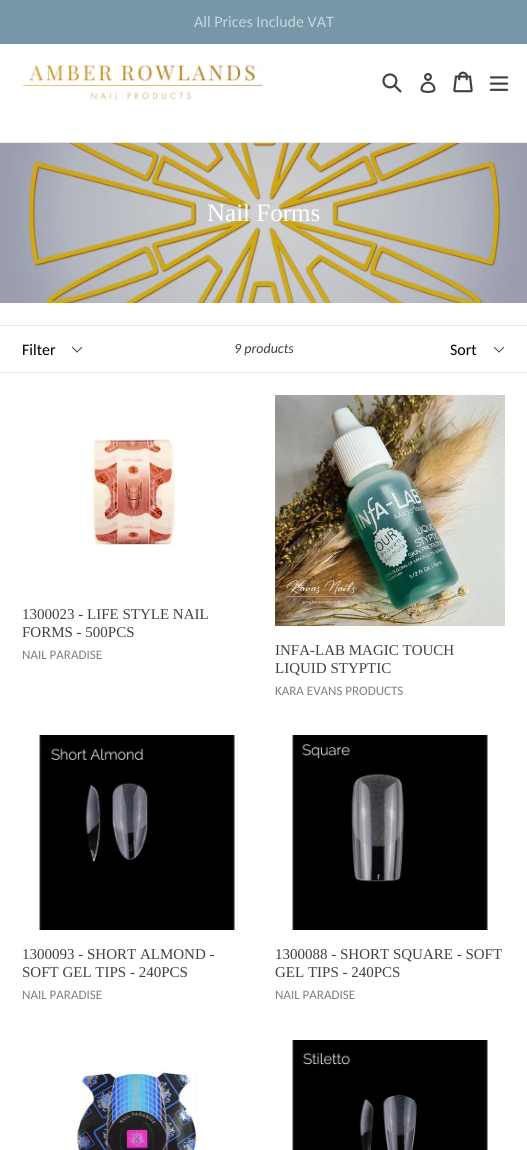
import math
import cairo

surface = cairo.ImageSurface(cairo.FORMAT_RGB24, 527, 1150)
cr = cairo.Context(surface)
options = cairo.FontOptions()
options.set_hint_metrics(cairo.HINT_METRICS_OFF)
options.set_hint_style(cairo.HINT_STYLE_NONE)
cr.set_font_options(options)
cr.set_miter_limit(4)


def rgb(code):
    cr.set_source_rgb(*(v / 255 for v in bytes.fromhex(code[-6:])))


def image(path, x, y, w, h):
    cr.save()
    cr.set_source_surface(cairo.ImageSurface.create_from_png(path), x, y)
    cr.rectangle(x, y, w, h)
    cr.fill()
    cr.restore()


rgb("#ffffff")
cr.paint()
rgb("#7796a8")
cr.rectangle(0, 0, 527, 44)
cr.fill()
rgb("#e8e9eb")
cr.rectangle(0, 142, 527, 1)
cr.fill()
image("img/1.png", 22, 63, 241, 38)
image("img/2.png", 382, 73, 20, 20)
image("img/3.png", 420, 73, 16, 20)
image("img/4.png", 453, 71, 20, 22)
image("img/5.png", 489, 76, 20, 15)
image("img/6.png", 0, 143, 527, 160)
cr.rectangle(0, 325, 527, 1)
cr.fill()
cr.rectangle(0, 372, 527, 1)
cr.fill()
image("img/7.png", 71, 346, 12, 7)
image("img/7.png", 493, 346, 12, 7)
image("img/8.png", 92, 439, 84, 107)
image("img/9.png", 275, 395, 230, 231)
image("img/10.png", 39, 735, 196, 195)
image("img/11.png", 292, 735, 196, 195)
image("img/12.png", 77, 1069, 122, 81)
image("img/13.png", 292, 1040, 196, 110)
cr.select_font_face("Carlito")
cr.set_font_size(16)
rgb("#c9d5dc")
cr.move_to(194, 27)
cr.show_text("All Prices Include VAT")
cr.select_font_face("Liberation Serif")
cr.set_font_size(25)
rgb("#ffffff")
cr.move_to(207, 221)
cr.show_text("Nail Forms")
cr.select_font_face("Carlito")
cr.set_font_size(16)
rgb("#000000")
cr.move_to(22, 355)
cr.show_text("Filter")
cr.select_font_face("Carlito", cairo.FONT_SLANT_ITALIC)
cr.set_font_size(14)
rgb("#3d4246")
cr.move_to(234, 353)
cr.show_text("9 products")
cr.select_font_face("Carlito")
cr.set_font_size(16)
rgb("#000000")
cr.move_to(450, 355)
cr.show_text("Sort")
cr.select_font_face("Liberation Serif")
cr.set_font_size(15)
rgb("#3d4246")
cr.move_to(22, 619)
cr.show_text("1300023 - LIFE STYLE NAIL")
cr.move_to(22, 637)
cr.show_text("FORMS - 500PCS")
cr.select_font_face("Carlito")
cr.set_font_size(13)
rgb("#788188")
cr.move_to(22, 659)
cr.show_text("NAIL PARADISE")
cr.select_font_face("Liberation Serif")
cr.set_font_size(15)
rgb("#3d4246")
cr.move_to(275, 655)
cr.show_text("INFA-LAB MAGIC TOUCH")
cr.move_to(275, 673)
cr.show_text("LIQUID STYPTIC")
cr.select_font_face("Carlito")
cr.set_font_size(13)
rgb("#788188")
cr.move_to(275, 695)
cr.show_text("KARA EVANS PRODUCTS")
cr.select_font_face("Liberation Serif")
cr.set_font_size(15)
rgb("#3d4246")
cr.move_to(22, 959)
cr.show_text("1300093 - SHORT ALMOND -")
cr.move_to(22, 977)
cr.show_text("SOFT GEL TIPS - 240PCS")
cr.select_font_face("Carlito")
cr.set_font_size(13)
rgb("#788188")
cr.move_to(22, 999)
cr.show_text("NAIL PARADISE")
cr.select_font_face("Liberation Serif")
cr.set_font_size(15)
rgb("#3d4246")
cr.move_to(275, 959)
cr.show_text("1300088 - SHORT SQUARE - SOFT")
cr.move_to(275, 977)
cr.show_text("GEL TIPS - 240PCS")
cr.select_font_face("Carlito")
cr.set_font_size(13)
rgb("#788188")
cr.move_to(275, 999)
cr.show_text("NAIL PARADISE")
surface.write_to_png("page.png")
